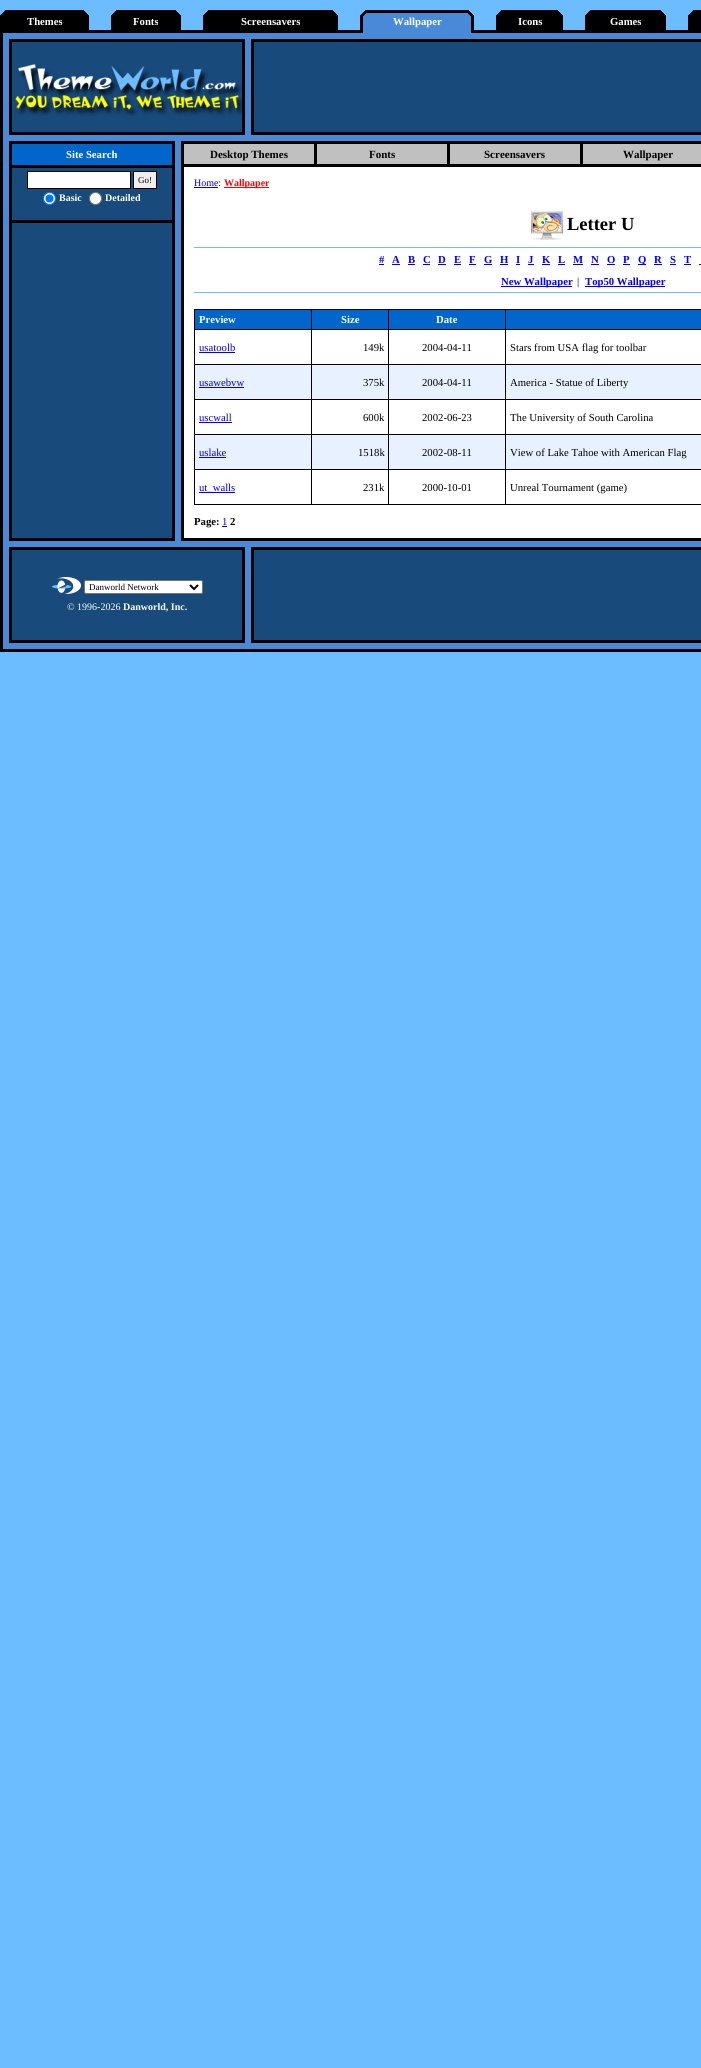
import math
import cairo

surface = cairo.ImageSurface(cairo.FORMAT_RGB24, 701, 2068)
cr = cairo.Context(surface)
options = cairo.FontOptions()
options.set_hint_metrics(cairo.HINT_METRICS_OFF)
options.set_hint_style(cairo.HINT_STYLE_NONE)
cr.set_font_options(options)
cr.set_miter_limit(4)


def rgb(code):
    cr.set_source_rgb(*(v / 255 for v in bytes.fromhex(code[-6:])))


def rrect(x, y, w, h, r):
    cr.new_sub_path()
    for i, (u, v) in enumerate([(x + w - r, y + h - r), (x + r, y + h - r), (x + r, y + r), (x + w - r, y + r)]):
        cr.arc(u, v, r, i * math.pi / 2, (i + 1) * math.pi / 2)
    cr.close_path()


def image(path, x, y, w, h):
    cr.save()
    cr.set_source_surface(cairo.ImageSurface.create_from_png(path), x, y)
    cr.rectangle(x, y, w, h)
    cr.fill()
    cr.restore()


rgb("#6bbdff")
cr.paint()
rgb("#000000")
cr.rectangle(0, 10, 701, 642)
cr.fill()
image("img/1.png", 0, 10, 5, 5)
image("img/2.png", 84, 10, 5, 5)
rgb("#6bbdff")
cr.rectangle(89, 10, 22, 20)
cr.fill()
image("img/1.png", 111, 10, 5, 5)
image("img/2.png", 176, 10, 5, 5)
cr.rectangle(181, 10, 22, 20)
cr.fill()
image("img/1.png", 203, 10, 5, 5)
image("img/2.png", 333, 10, 5, 5)
cr.rectangle(338, 10, 22, 20)
cr.fill()
rgb("#498ad8")
cr.rectangle(363, 13, 108, 20)
cr.fill()
image("img/3.png", 360, 10, 10, 23)
image("img/4.png", 464, 10, 10, 23)
rgb("#6bbdff")
cr.rectangle(474, 10, 22, 20)
cr.fill()
image("img/1.png", 496, 10, 5, 5)
image("img/2.png", 558, 10, 5, 5)
cr.rectangle(563, 10, 22, 20)
cr.fill()
image("img/1.png", 585, 10, 5, 5)
image("img/2.png", 661, 10, 5, 5)
cr.rectangle(666, 10, 22, 20)
cr.fill()
image("img/1.png", 688, 10, 5, 5)
for x, y, w, h, color in [
    (3, 33, 698, 6, "#498ad8"),
    (3, 39, 6, 96, "#498ad8"),
    (245, 39, 6, 96, "#498ad8"),
    (12, 42, 230, 90, "#184a7b"),
]:
    rgb(color)
    cr.rectangle(x, y, w, h)
    cr.fill()
image("img/5.png", 15, 64, 227, 52)
for x, y, w, h, color in [
    (254, 42, 447, 90, "#184a7b"),
    (3, 135, 698, 6, "#498ad8"),
    (3, 141, 6, 400, "#498ad8"),
    (175, 141, 6, 400, "#498ad8"),
    (12, 168, 160, 370, "#184a7b"),
    (12, 144, 160, 21, "#0066cc"),
]:
    rgb(color)
    cr.rectangle(x, y, w, h)
    cr.fill()
rgb("#ffffff")
cr.rectangle(27.5, 171.5, 103, 17)
cr.fill_preserve()
rgb("#000000")
cr.set_line_width(1)
cr.stroke()
rgb("#efefef")
cr.rectangle(133.5, 171.5, 23, 17)
cr.fill_preserve()
rgb("#000000")
cr.stroke()
rgb("#ffffff")
cr.arc(49.5, 198.5, 6, 0, 2 * math.pi)
cr.fill_preserve()
rgb("#0075ff")
cr.stroke()
cr.arc(49.5, 198.5, 4, 0, 2 * math.pi)
cr.fill()
rgb("#ffffff")
cr.arc(95.5, 198.5, 6, 0, 2 * math.pi)
cr.fill_preserve()
rgb("#767676")
cr.stroke()
for x, y, w, h, color in [
    (12, 220, 160, 3, "#000000"),
    (184, 167, 517, 371, "#ffffff"),
    (184, 144, 130, 20, "#c0c0c0"),
    (317, 144, 130, 20, "#c0c0c0"),
    (450, 144, 130, 20, "#c0c0c0"),
    (583, 144, 118, 20, "#c0c0c0"),
    (194, 187, 24, 1, "#0000ff"),
    (224, 187, 45, 1, "#ff0000"),
]:
    rgb(color)
    cr.rectangle(x, y, w, h)
    cr.fill()
image("img/6.png", 531, 211, 32, 29)
for x, y, w, h, color in [
    (194, 247, 507, 1, "#6bbdff"),
    (379, 264, 5, 1, "#0000ff"),
    (392, 264, 8, 1, "#0000ff"),
    (408, 264, 7, 1, "#0000ff"),
    (423, 264, 7, 1, "#0000ff"),
    (438, 264, 8, 1, "#0000ff"),
    (454, 264, 7, 1, "#0000ff"),
    (469, 264, 7, 1, "#0000ff"),
    (484, 264, 8, 1, "#0000ff"),
    (500, 264, 8, 1, "#0000ff"),
    (516, 264, 4, 1, "#0000ff"),
    (528, 264, 6, 1, "#0000ff"),
    (542, 264, 8, 1, "#0000ff"),
    (558, 264, 7, 1, "#0000ff"),
    (573, 264, 10, 1, "#0000ff"),
    (591, 264, 8, 1, "#0000ff"),
    (607, 264, 8, 1, "#0000ff"),
    (623, 264, 7, 1, "#0000ff"),
    (638, 264, 8, 1, "#0000ff"),
    (654, 264, 8, 1, "#0000ff"),
    (670, 264, 6, 1, "#0000ff"),
    (684, 264, 7, 1, "#0000ff"),
    (699, 264, 2, 1, "#0000ff"),
    (501, 286, 71, 1, "#0000ff"),
    (585, 286, 80, 1, "#0000ff"),
    (194, 292, 507, 1, "#6bbdff"),
    (194, 309, 507, 1, "#000000"),
    (194, 504, 507, 1, "#000000"),
    (194, 309, 1, 196, "#000000"),
    (195, 310, 506, 19, "#0066cc"),
    (505, 329, 196, 1, "#000000"),
    (505, 364, 196, 1, "#000000"),
    (195, 365, 506, 34, "#e7f1ff"),
    (505, 399, 196, 1, "#000000"),
    (505, 434, 196, 1, "#000000"),
    (195, 435, 506, 34, "#e7f1ff"),
    (505, 469, 196, 1, "#000000"),
    (505, 469, 1, 36, "#000000"),
    (388, 469, 118, 1, "#000000"),
    (505, 434, 1, 36, "#000000"),
    (388, 434, 118, 1, "#000000"),
    (505, 399, 1, 36, "#000000"),
    (388, 399, 118, 1, "#000000"),
    (505, 364, 1, 36, "#000000"),
    (388, 364, 118, 1, "#000000"),
    (505, 329, 1, 36, "#000000"),
    (388, 329, 118, 1, "#000000"),
    (388, 469, 1, 36, "#000000"),
    (311, 469, 78, 1, "#000000"),
    (388, 434, 1, 36, "#000000"),
    (311, 434, 78, 1, "#000000"),
    (388, 399, 1, 36, "#000000"),
    (311, 399, 78, 1, "#000000"),
    (388, 364, 1, 36, "#000000"),
    (311, 364, 78, 1, "#000000"),
    (388, 329, 1, 36, "#000000"),
    (311, 329, 78, 1, "#000000"),
    (311, 469, 1, 36, "#000000"),
    (194, 469, 118, 1, "#000000"),
    (311, 434, 1, 36, "#000000"),
    (194, 434, 118, 1, "#000000"),
    (311, 399, 1, 36, "#000000"),
    (194, 399, 118, 1, "#000000"),
    (311, 364, 1, 36, "#000000"),
    (194, 364, 118, 1, "#000000"),
    (311, 329, 1, 36, "#000000"),
    (194, 329, 118, 1, "#000000"),
    (311, 309, 1, 21, "#000000"),
    (388, 309, 1, 21, "#000000"),
    (505, 309, 1, 21, "#000000"),
    (199, 352, 36, 1, "#0000ff"),
    (199, 387, 45, 1, "#0000ff"),
    (199, 422, 33, 1, "#0000ff"),
    (199, 457, 27, 1, "#0000ff"),
    (199, 492, 36, 1, "#0000ff"),
    (222, 526, 5, 1, "#0000ff"),
    (3, 541, 698, 6, "#498ad8"),
    (3, 547, 6, 96, "#498ad8"),
    (245, 547, 6, 96, "#498ad8"),
    (12, 550, 230, 90, "#184a7b"),
]:
    rgb(color)
    cr.rectangle(x, y, w, h)
    cr.fill()
image("img/7.png", 52, 577, 29, 17)
rgb("#ffffff")
rrect(84.5, 580.5, 118, 13, 1.5)
cr.fill_preserve()
rgb("#767676")
cr.stroke()
cr.new_path()
cr.move_to(190, 585)
cr.line_to(194, 589)
cr.line_to(198, 585)
rgb("#000000")
cr.set_line_width(2)
cr.stroke()
rgb("#184a7b")
cr.rectangle(254, 550, 447, 90)
cr.fill()
rgb("#498ad8")
cr.rectangle(3, 643, 698, 6)
cr.fill()
cr.select_font_face("Liberation Serif", cairo.FONT_SLANT_NORMAL, cairo.FONT_WEIGHT_BOLD)
cr.set_font_size(10.7)
rgb("#ffffff")
for x, y, s in [
    (27, 25, "Themes"),
    (133, 25, "Fonts"),
    (241, 25, "Screensavers"),
    (393, 25, "Wallpaper"),
    (518, 25, "Icons"),
    (610, 25, "Games"),
    (66, 158, "Site Search"),
]:
    cr.move_to(x, y)
    cr.show_text(s)
cr.select_font_face("Liberation Serif")
cr.set_font_size(9)
rgb("#000000")
cr.move_to(138, 183)
cr.show_text("Go!")
cr.select_font_face("Liberation Serif", cairo.FONT_SLANT_NORMAL, cairo.FONT_WEIGHT_BOLD)
cr.set_font_size(10)
rgb("#ffffff")
cr.move_to(59, 201)
cr.show_text("Basic")
cr.move_to(105, 201)
cr.show_text("Detailed")
cr.set_font_size(11)
rgb("#000000")
for x, y, s in [
    (210, 158, "Desktop Themes"),
    (369, 158, "Fonts"),
    (484, 158, "Screensavers"),
    (623, 158, "Wallpaper"),
]:
    cr.move_to(x, y)
    cr.show_text(s)
cr.select_font_face("Liberation Serif")
cr.set_font_size(10)
rgb("#0000ff")
cr.move_to(194, 186)
cr.show_text("Home")
rgb("#000000")
cr.move_to(218, 186)
cr.show_text(":")
cr.select_font_face("Liberation Serif", cairo.FONT_SLANT_NORMAL, cairo.FONT_WEIGHT_BOLD)
rgb("#ff0000")
cr.move_to(224, 186)
cr.show_text("Wallpaper")
cr.set_font_size(18.5)
rgb("#000000")
cr.move_to(567, 230)
cr.show_text("Letter U")
cr.set_font_size(10.7)
rgb("#0000ff")
for x, y, s in [
    (379, 263, "#"),
    (392, 263, "A"),
    (408, 263, "B"),
    (423, 263, "C"),
    (438, 263, "D"),
    (454, 263, "E"),
    (469, 263, "F"),
    (484, 263, "G"),
    (500, 263, "H"),
    (516, 263, "I"),
    (528, 263, "J"),
    (542, 263, "K"),
    (558, 263, "L"),
    (573, 263, "M"),
    (591, 263, "N"),
    (607, 263, "O"),
    (623, 263, "P"),
    (638, 263, "Q"),
    (654, 263, "R"),
    (670, 263, "S"),
    (684, 263, "T"),
    (501, 285, "New Wallpaper"),
]:
    cr.move_to(x, y)
    cr.show_text(s)
cr.select_font_face("Liberation Serif")
rgb("#000000")
cr.move_to(577, 285)
cr.show_text("|")
cr.select_font_face("Liberation Serif", cairo.FONT_SLANT_NORMAL, cairo.FONT_WEIGHT_BOLD)
rgb("#0000ff")
cr.move_to(585, 285)
cr.show_text("Top50 Wallpaper")
rgb("#ffffff")
for x, y, s in [
    (199, 323, "Preview"),
    (341, 323, "Size"),
    (436, 323, "Date"),
]:
    cr.move_to(x, y)
    cr.show_text(s)
cr.select_font_face("Liberation Serif")
rgb("#0000ff")
cr.move_to(199, 351)
cr.show_text("usatoolb")
rgb("#000000")
for x, y, s in [
    (363, 351, "149k"),
    (422, 351, "2004-04-11"),
    (510, 351, "Stars from USA flag for toolbar"),
]:
    cr.move_to(x, y)
    cr.show_text(s)
rgb("#0000ff")
cr.move_to(199, 386)
cr.show_text("usawebvw")
rgb("#000000")
for x, y, s in [
    (363, 386, "375k"),
    (422, 386, "2004-04-11"),
    (510, 386, "America - Statue of Liberty"),
]:
    cr.move_to(x, y)
    cr.show_text(s)
rgb("#0000ff")
cr.move_to(199, 421)
cr.show_text("uscwall")
rgb("#000000")
for x, y, s in [
    (363, 421, "600k"),
    (422, 421, "2002-06-23"),
    (510, 421, "The University of South Carolina"),
]:
    cr.move_to(x, y)
    cr.show_text(s)
rgb("#0000ff")
cr.move_to(199, 456)
cr.show_text("uslake")
rgb("#000000")
for x, y, s in [
    (358, 456, "1518k"),
    (422, 456, "2002-08-11"),
    (510, 456, "View of Lake Tahoe with American Flag"),
]:
    cr.move_to(x, y)
    cr.show_text(s)
rgb("#0000ff")
cr.move_to(199, 491)
cr.show_text("ut_walls")
rgb("#000000")
for x, y, s in [
    (363, 491, "231k"),
    (422, 491, "2000-10-01"),
    (510, 491, "Unreal Tournament (game)"),
]:
    cr.move_to(x, y)
    cr.show_text(s)
cr.select_font_face("Liberation Serif", cairo.FONT_SLANT_NORMAL, cairo.FONT_WEIGHT_BOLD)
cr.move_to(194, 525)
cr.show_text("Page:")
cr.select_font_face("Liberation Serif")
rgb("#0000ff")
cr.move_to(222, 525)
cr.show_text("1")
cr.select_font_face("Liberation Serif", cairo.FONT_SLANT_NORMAL, cairo.FONT_WEIGHT_BOLD)
rgb("#000000")
cr.move_to(230, 525)
cr.show_text("2")
cr.select_font_face("Liberation Serif")
cr.set_font_size(9)
cr.move_to(89, 590)
cr.show_text("Danworld Network")
cr.set_font_size(10)
rgb("#ffffff")
cr.move_to(67, 610)
cr.show_text("© 1996-2026")
cr.select_font_face("Liberation Serif", cairo.FONT_SLANT_NORMAL, cairo.FONT_WEIGHT_BOLD)
cr.move_to(123, 610)
cr.show_text("Danworld, Inc.")
surface.write_to_png("page.png")
